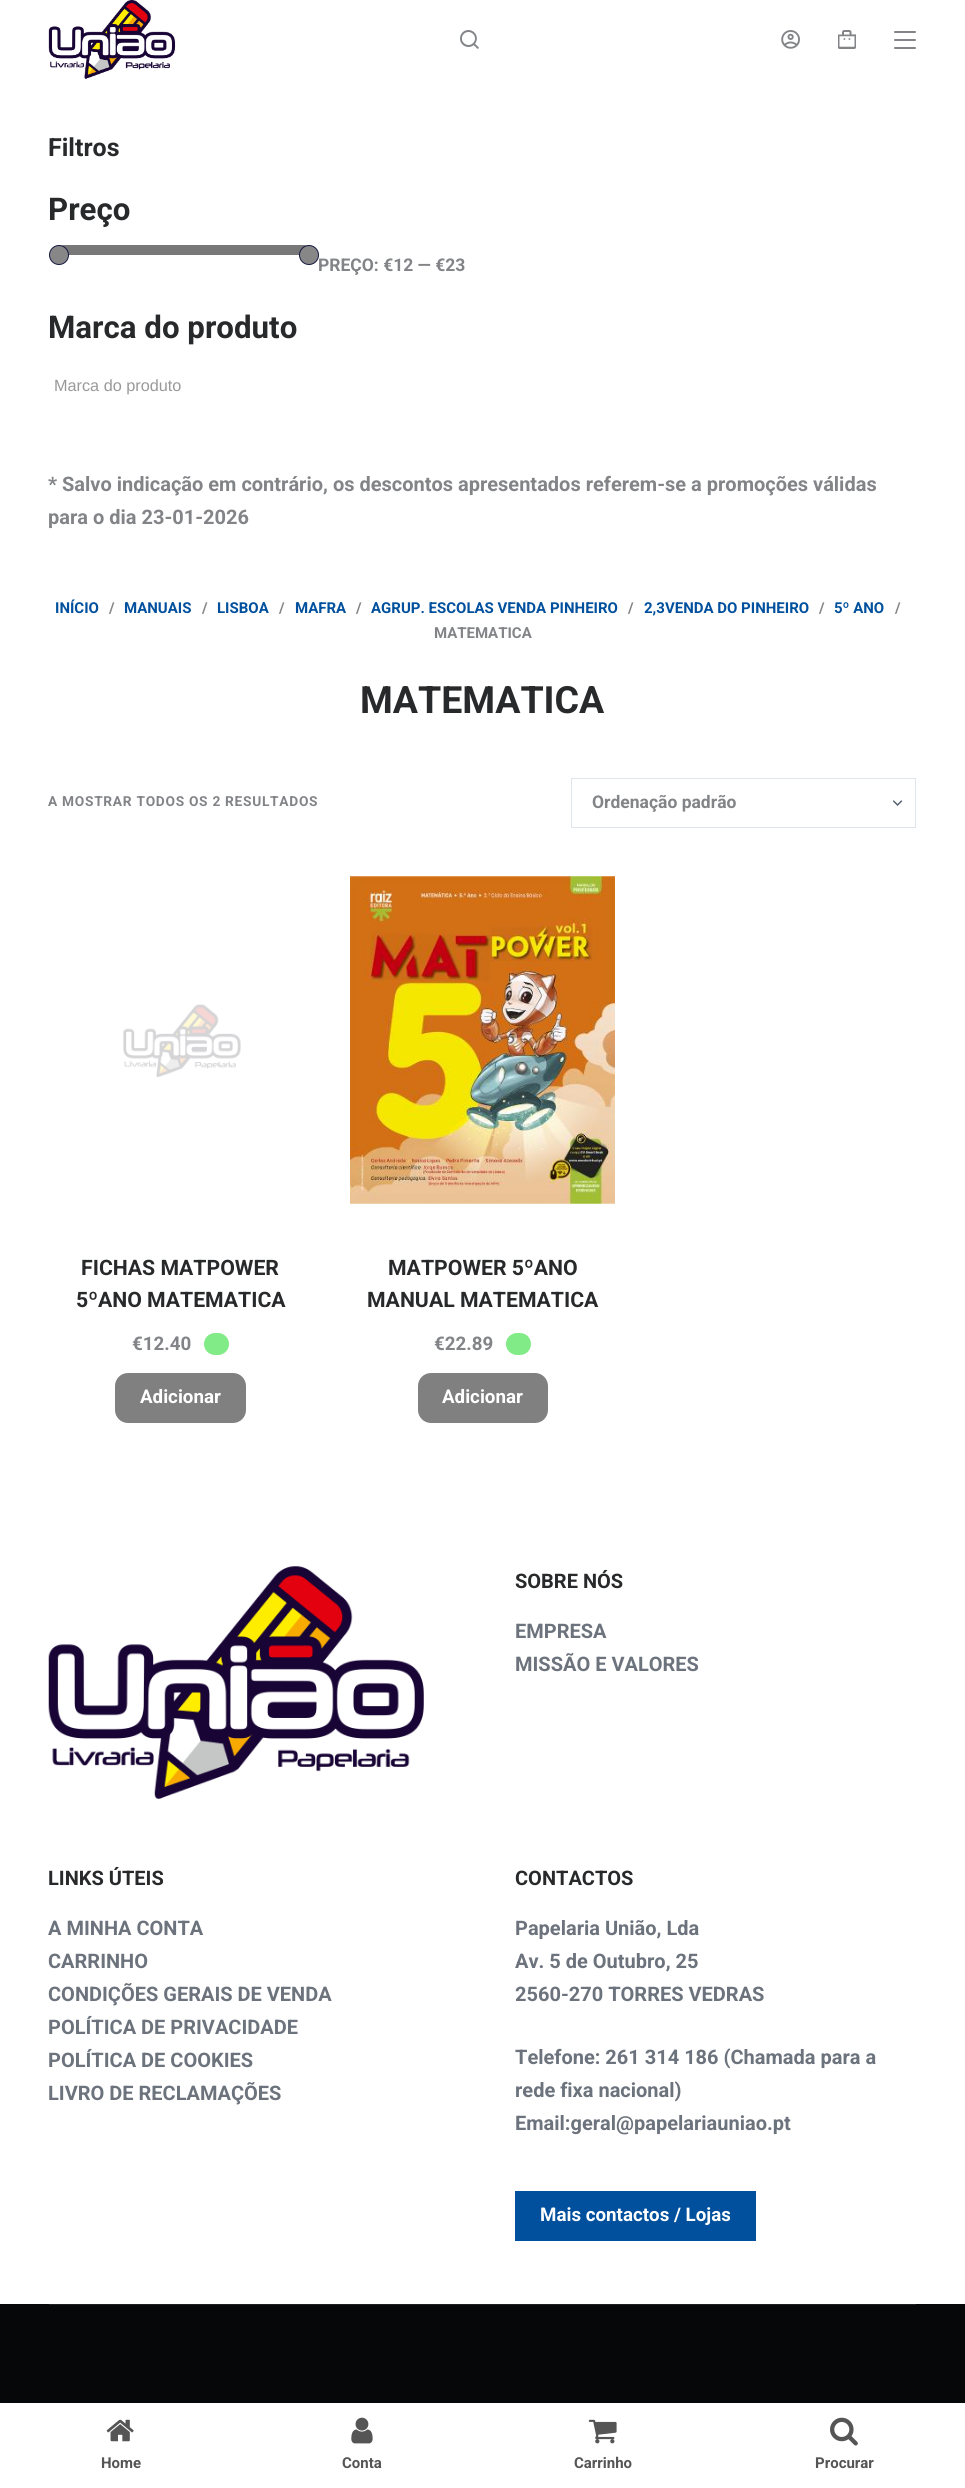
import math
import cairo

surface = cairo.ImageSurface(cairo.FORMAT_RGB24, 965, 2488)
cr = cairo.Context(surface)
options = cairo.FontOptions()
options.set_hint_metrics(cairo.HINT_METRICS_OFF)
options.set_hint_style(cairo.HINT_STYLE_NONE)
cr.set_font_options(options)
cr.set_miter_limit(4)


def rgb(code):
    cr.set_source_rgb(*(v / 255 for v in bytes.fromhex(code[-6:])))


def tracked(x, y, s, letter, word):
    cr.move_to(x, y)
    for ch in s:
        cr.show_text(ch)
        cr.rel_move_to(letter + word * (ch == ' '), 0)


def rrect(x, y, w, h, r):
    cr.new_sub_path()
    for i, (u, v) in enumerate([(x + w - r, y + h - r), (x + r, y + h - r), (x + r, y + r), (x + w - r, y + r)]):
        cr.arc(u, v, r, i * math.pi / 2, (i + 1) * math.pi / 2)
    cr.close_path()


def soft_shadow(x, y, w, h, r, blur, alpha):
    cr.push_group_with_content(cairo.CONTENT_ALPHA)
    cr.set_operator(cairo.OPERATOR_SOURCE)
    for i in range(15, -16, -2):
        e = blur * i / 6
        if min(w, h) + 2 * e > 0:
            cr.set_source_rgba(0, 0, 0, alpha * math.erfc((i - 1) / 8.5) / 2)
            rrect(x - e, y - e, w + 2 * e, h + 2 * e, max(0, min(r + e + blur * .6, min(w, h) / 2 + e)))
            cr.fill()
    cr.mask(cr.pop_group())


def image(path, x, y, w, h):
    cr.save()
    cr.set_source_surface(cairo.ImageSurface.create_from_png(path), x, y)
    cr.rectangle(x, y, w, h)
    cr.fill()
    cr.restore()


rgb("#ffffff")
cr.paint()
image("img/1.png", 48, 0, 128, 79)
image("img/2.png", 460, 30, 19, 19)
image("img/3.png", 781, 30, 19, 19)
image("img/4.png", 838, 30, 18, 19)
rgb("#828487")
rrect(894, 31, 22, 2, 1)
cr.fill()
rrect(894, 39, 22, 2, 1)
cr.fill()
rrect(894, 47, 22, 2, 1)
cr.fill()
rgb("#787878")
rrect(59, 245, 250, 10, 5)
cr.fill()
rgb("#878787")
cr.arc(59, 255, 9.5, 0, 2 * math.pi)
cr.fill_preserve()
rgb("#141741")
cr.set_line_width(1)
cr.stroke()
rgb("#878787")
cr.arc(309, 255, 9.5, 0, 2 * math.pi)
cr.fill_preserve()
rgb("#141741")
cr.stroke()
image("img/5.png", 893, 800, 10, 6)
cr.rectangle(571.5, 778.5, 344, 49)
rgb("#e0e5eb")
cr.stroke()
image("img/6.png", 123, 1004, 118, 73)
rgb("#81eb87")
rrect(204, 1333, 25, 22, 11)
cr.fill()
rgb("#808080")
rrect(115, 1373, 131, 50, 13)
cr.fill()
image("img/7.png", 350, 876, 265, 328)
rgb("#81eb87")
rrect(506, 1333, 25, 22, 11)
cr.fill()
rgb("#808080")
rrect(418, 1373, 130, 50, 13)
cr.fill()
rgb("#050709")
cr.rectangle(0, 2304, 965, 99)
cr.fill()
image("img/8.png", 48, 1566, 376, 233)
rgb("#00509d")
cr.rectangle(515, 2191, 241, 50)
cr.fill()
rgb("#1e2022")
cr.rectangle(49, 2304, 867, 1)
cr.fill()
rgb("#000000")
soft_shadow(0, 2396, 965, 87, 0, 6, 0.1)
rgb("#ffffff")
cr.rectangle(0, 2403, 965, 85)
cr.fill()
image("img/9.png", 106, 2419, 28, 23)
image("img/10.png", 351, 2417, 22, 27)
image("img/11.png", 588, 2419, 29, 25)
image("img/12.png", 830, 2417, 28, 29)
cr.select_font_face("Roboto", cairo.FONT_SLANT_NORMAL, cairo.FONT_WEIGHT_BOLD)
cr.set_font_size(25)
rgb("#28292a")
cr.move_to(48, 156)
cr.show_text("Filtros")
cr.set_font_size(31.25)
cr.move_to(48, 220)
cr.show_text("Preço")
cr.set_font_size(17.5)
rgb("#828487")
cr.move_to(318, 271)
cr.show_text("PREÇO: €12 — €23")
cr.set_font_size(31.25)
rgb("#28292a")
cr.move_to(48, 338)
cr.show_text("Marca do produto")
cr.select_font_face("Liberation Sans")
cr.set_font_size(16.25)
rgb("#999999")
cr.move_to(54, 391)
cr.show_text("Marca do produto")
cr.select_font_face("Roboto", cairo.FONT_SLANT_NORMAL, cairo.FONT_WEIGHT_BOLD)
cr.set_font_size(20)
rgb("#828487")
cr.move_to(48, 491)
cr.show_text("* Salvo indicação em contrário, os descontos apresentados referem-se a promoções válidas")
cr.move_to(48, 524)
cr.show_text("para o dia 23-01-2026")
cr.set_font_size(15)
rgb("#00509d")
cr.move_to(55, 613)
cr.show_text("INÍCIO")
rgb("#828487")
cr.move_to(109, 613)
cr.show_text("/")
rgb("#00509d")
cr.move_to(124, 613)
cr.show_text("MANUAIS")
rgb("#828487")
cr.move_to(202, 613)
cr.show_text("/")
rgb("#00509d")
cr.move_to(217, 613)
cr.show_text("LISBOA")
rgb("#828487")
cr.move_to(279, 613)
cr.show_text("/")
rgb("#00509d")
cr.move_to(295, 613)
cr.show_text("MAFRA")
rgb("#828487")
cr.move_to(356, 613)
cr.show_text("/")
rgb("#00509d")
cr.move_to(371, 613)
cr.show_text("AGRUP. ESCOLAS VENDA PINHEIRO")
rgb("#828487")
cr.move_to(628, 613)
cr.show_text("/")
rgb("#00509d")
cr.move_to(644, 613)
cr.show_text("2,3VENDA DO PINHEIRO")
rgb("#828487")
cr.move_to(819, 613)
cr.show_text("/")
rgb("#00509d")
cr.move_to(834, 613)
cr.show_text("5º ANO")
rgb("#828487")
cr.move_to(895, 613)
cr.show_text("/")
cr.move_to(434, 638)
cr.show_text("MATEMATICA")
cr.set_font_size(37.5)
rgb("#28292a")
cr.move_to(360, 713)
cr.show_text("MATEMATICA")
cr.set_font_size(13.75)
rgb("#828487")
tracked(48, 806, "A MOSTRAR TODOS OS 2 RESULTADOS", 0.7, 0)
cr.set_font_size(17.5)
cr.move_to(592, 808)
cr.show_text("Ordenação padrão")
cr.set_font_size(21.25)
rgb("#28292a")
cr.move_to(81, 1275)
cr.show_text("FICHAS MATPOWER")
cr.move_to(76, 1307)
cr.show_text("5ºANO MATEMATICA")
cr.set_font_size(18.75)
rgb("#828487")
cr.move_to(132, 1350)
cr.show_text("€12.40")
rgb("#ffffff")
cr.move_to(140, 1403)
cr.show_text("Adicionar")
cr.set_font_size(21.25)
rgb("#28292a")
cr.move_to(388, 1275)
cr.show_text("MATPOWER 5ºANO")
cr.move_to(367, 1307)
cr.show_text("MANUAL MATEMATICA")
cr.set_font_size(18.75)
rgb("#828487")
cr.move_to(434, 1350)
cr.show_text("€22.89")
rgb("#ffffff")
cr.move_to(442, 1403)
cr.show_text("Adicionar")
cr.set_font_size(20)
rgb("#28292a")
cr.move_to(515, 1588)
cr.show_text("SOBRE NÓS")
rgb("#6c737d")
cr.move_to(515, 1638)
cr.show_text("EMPRESA")
cr.move_to(515, 1671)
cr.show_text("MISSÃO E VALORES")
rgb("#28292a")
cr.move_to(48, 1885)
cr.show_text("LINKS ÚTEIS")
rgb("#6c737d")
for x, y, s in [
    (48, 1935, "A MINHA CONTA"),
    (48, 1968, "CARRINHO"),
    (48, 2001, "CONDIÇÕES GERAIS DE VENDA"),
    (48, 2034, "POLÍTICA DE PRIVACIDADE"),
    (48, 2067, "POLÍTICA DE COOKIES"),
    (48, 2100, "LIVRO DE RECLAMAÇÕES"),
]:
    cr.move_to(x, y)
    cr.show_text(s)
rgb("#28292a")
cr.move_to(515, 1885)
cr.show_text("CONTACTOS")
rgb("#6c737d")
for x, y, s in [
    (515, 1935, "Papelaria União, Lda"),
    (515, 1968, "Av. 5 de Outubro, 25"),
    (515, 2001, "2560-270 TORRES VEDRAS"),
    (515, 2064, "Telefone: 261 314 186 (Chamada para a"),
    (515, 2097, "rede fixa nacional)"),
    (515, 2130, "Email:geral@papelariauniao.pt"),
]:
    cr.move_to(x, y)
    cr.show_text(s)
cr.set_font_size(18.75)
rgb("#ffffff")
cr.move_to(540, 2221)
cr.show_text("Mais contactos / Lojas")
cr.set_font_size(15)
rgb("#555555")
for x, y, s in [
    (101, 2468, "Home"),
    (342, 2468, "Conta"),
    (574, 2468, "Carrinho"),
    (815, 2468, "Procurar"),
]:
    cr.move_to(x, y)
    cr.show_text(s)
surface.write_to_png("page.png")
